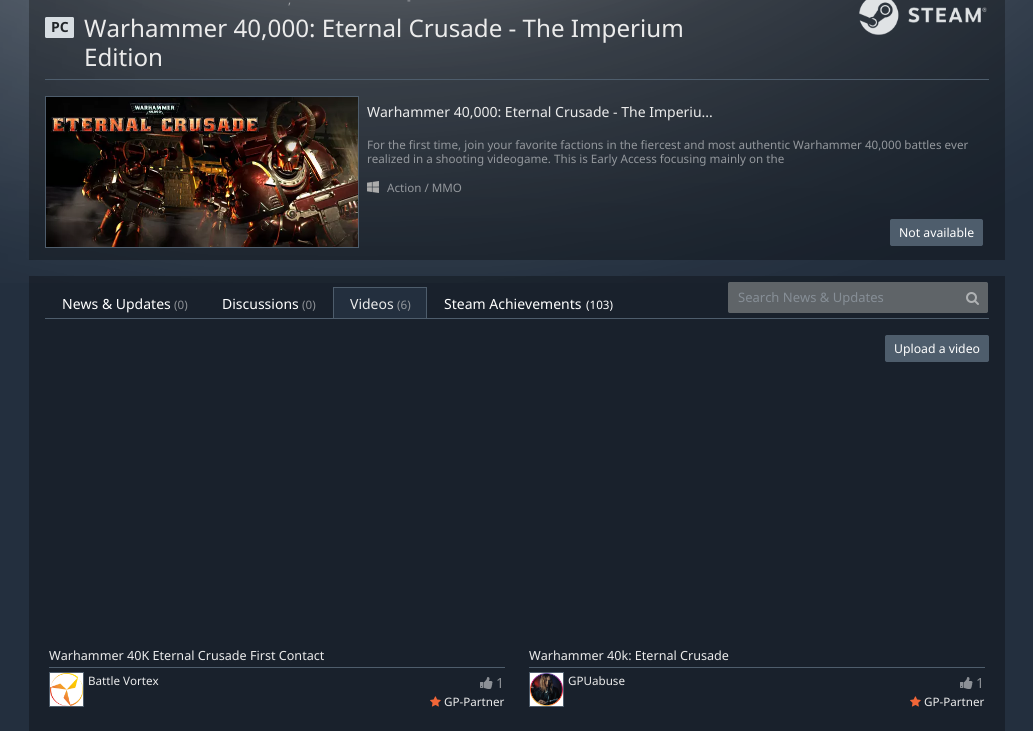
import math
import cairo

surface = cairo.ImageSurface(cairo.FORMAT_RGB24, 1033, 731)
cr = cairo.Context(surface)
options = cairo.FontOptions()
options.set_hint_metrics(cairo.HINT_METRICS_OFF)
options.set_hint_style(cairo.HINT_STYLE_NONE)
cr.set_font_options(options)
cr.set_miter_limit(4)


def rgb(code):
    cr.set_source_rgb(*(v / 255 for v in bytes.fromhex(code[-6:])))


def rrect(x, y, w, h, r):
    cr.new_sub_path()
    for i, (u, v) in enumerate([(x + w - r, y + h - r), (x + r, y + h - r), (x + r, y + r), (x + w - r, y + r)]):
        cr.arc(u, v, r, i * math.pi / 2, (i + 1) * math.pi / 2)
    cr.close_path()


def image(path, x, y, w, h):
    cr.save()
    cr.set_source_surface(cairo.ImageSurface.create_from_png(path), x, y)
    cr.rectangle(x, y, w, h)
    cr.fill()
    cr.restore()


rgb("#232f3e")
cr.paint()
image("img/1.png", 0, 0, 1033, 283)
cr.set_source_rgba(0, 0, 0, 0.3)
cr.rectangle(29, 0, 976, 260)
cr.fill()
rgb("#d7dde2")
rrect(45, 17, 29, 21, 1.5)
cr.fill()
rgb("#4e5d6c")
cr.rectangle(45, 79, 944, 1)
cr.fill()
image("img/2.png", 859, 0, 128, 35)
cr.rectangle(45.5, 96.5, 313, 151)
cr.set_line_width(1)
cr.stroke()
image("img/3.png", 46, 97, 312, 150)
image("img/4.png", 367, 181, 12, 12)
rrect(890.5, 219.5, 92, 26, 1.5)
cr.fill_preserve()
cr.stroke()
cr.set_source_rgba(0, 0, 0, 0.3)
cr.rectangle(29, 276, 976, 455)
cr.fill()
rgb("#4e5d6c")
cr.rectangle(45, 318, 944, 1)
cr.fill()
rgb("#232f3e")
cr.rectangle(334, 288, 92, 30)
cr.fill()
cr.save()
cr.rectangle(45, 287, 944, 31)
cr.clip()
cr.rectangle(333.5, 287.5, 93, 31)
rgb("#4e5d6c")
cr.stroke()
cr.restore()
rgb("#5f6468")
cr.new_path()
cr.move_to(730, 282.5)
cr.line_to(957.5, 282.5)
cr.line_to(957.5, 312.5)
cr.line_to(730, 312.5)
cr.curve_to(729, 312.5, 728.5, 312, 728.5, 311)
cr.line_to(728.5, 284)
cr.curve_to(728.5, 283, 729, 282.5, 730, 282.5)
cr.close_path()
cr.fill_preserve()
cr.stroke()
cr.new_path()
cr.move_to(957.5, 282.5)
cr.line_to(986, 282.5)
cr.curve_to(987, 282.5, 987.5, 283, 987.5, 284)
cr.line_to(987.5, 311)
cr.curve_to(987.5, 312, 987, 312.5, 986, 312.5)
cr.line_to(957.5, 312.5)
cr.close_path()
cr.fill_preserve()
cr.stroke()
image("img/5.png", 966, 292, 13, 13)
rgb("#4e5d6c")
rrect(885.5, 335.5, 103, 26, 1.5)
cr.fill_preserve()
cr.stroke()
cr.rectangle(49, 667, 456, 1)
cr.fill()
cr.rectangle(49.5, 672.5, 34, 34)
cr.stroke()
image("img/6.png", 50, 673, 33, 33)
image("img/7.png", 480, 677, 13, 12)
image("img/8.png", 430, 696, 11, 11)
cr.rectangle(529, 667, 456, 1)
cr.fill()
cr.rectangle(529.5, 672.5, 34, 34)
cr.stroke()
image("img/9.png", 530, 673, 33, 33)
image("img/7.png", 960, 677, 13, 12)
image("img/8.png", 910, 696, 11, 11)
cr.select_font_face("Noto Sans")
cr.set_font_size(11.62)
rgb("#a4a7ab")
cr.move_to(407, 4)
cr.show_text("-")
cr.move_to(288, 4)
cr.show_text(",")
cr.select_font_face("Noto Sans", cairo.FONT_SLANT_NORMAL, cairo.FONT_WEIGHT_BOLD)
cr.set_font_size(14)
rgb("#212529")
cr.move_to(51, 32)
cr.show_text("PC")
cr.select_font_face("Noto Sans")
cr.set_font_size(24.15)
rgb("#ebebeb")
cr.move_to(84, 37)
cr.show_text("Warhammer 40,000: Eternal Crusade - The Imperium")
cr.move_to(84, 66)
cr.show_text("Edition")
cr.set_font_size(14)
cr.move_to(367, 117)
cr.show_text("Warhammer 40,000: Eternal Crusade - The Imperiu...")
cr.set_font_size(11.62)
rgb("#93979c")
for x, y, s in [
    (367, 149, "For the first time, join your favorite factions in the fiercest and most authentic Warhammer 40,000 battles ever"),
    (367, 163, "realized in a shooting videogame. This is Early Access focusing mainly on the"),
    (387, 192, "Action / MMO"),
]:
    cr.move_to(x, y)
    cr.show_text(s)
cr.set_font_size(12.25)
rgb("#ffffff")
cr.move_to(899, 237)
cr.show_text("Not available")
cr.set_font_size(14)
cr.move_to(62, 309)
cr.show_text("News & Updates")
cr.set_font_size(11.62)
rgb("#8c9095")
cr.move_to(174, 309)
cr.show_text("(0)")
cr.set_font_size(14)
rgb("#ffffff")
cr.move_to(222, 309)
cr.show_text("Discussions")
cr.set_font_size(11.62)
rgb("#8c9095")
cr.move_to(302, 309)
cr.show_text("(0)")
cr.set_font_size(14)
rgb("#ebebeb")
cr.move_to(350, 309)
cr.show_text("Videos")
cr.set_font_size(11.62)
rgb("#93979c")
cr.move_to(397, 309)
cr.show_text("(6)")
cr.set_font_size(14)
rgb("#ffffff")
cr.move_to(444, 309)
cr.show_text("Steam Achievements")
cr.set_font_size(11.62)
cr.move_to(586, 309)
cr.show_text("(103)")
cr.set_font_size(13)
rgb("#868e96")
cr.move_to(738, 302)
cr.show_text("Search News & Updates")
cr.set_font_size(12.25)
rgb("#ffffff")
cr.move_to(894, 353)
cr.show_text("Upload a video")
cr.set_font_size(12.6)
rgb("#ebebeb")
cr.move_to(49, 660)
cr.show_text("Warhammer 40K Eternal Crusade First Contact")
cr.set_font_size(11.62)
cr.move_to(88, 685)
cr.show_text("Battle Vortex")
cr.set_font_size(14)
rgb("#8c9095")
cr.move_to(496, 688)
cr.show_text("1")
cr.set_font_size(11.62)
rgb("#ebebeb")
cr.move_to(444, 706)
cr.show_text("GP-Partner")
cr.set_font_size(12.6)
cr.move_to(529, 660)
cr.show_text("Warhammer 40k: Eternal Crusade")
cr.set_font_size(11.62)
cr.move_to(568, 685)
cr.show_text("GPUabuse")
cr.set_font_size(14)
rgb("#8c9095")
cr.move_to(976, 688)
cr.show_text("1")
cr.set_font_size(11.62)
rgb("#ebebeb")
cr.move_to(924, 706)
cr.show_text("GP-Partner")
surface.write_to_png("page.png")
